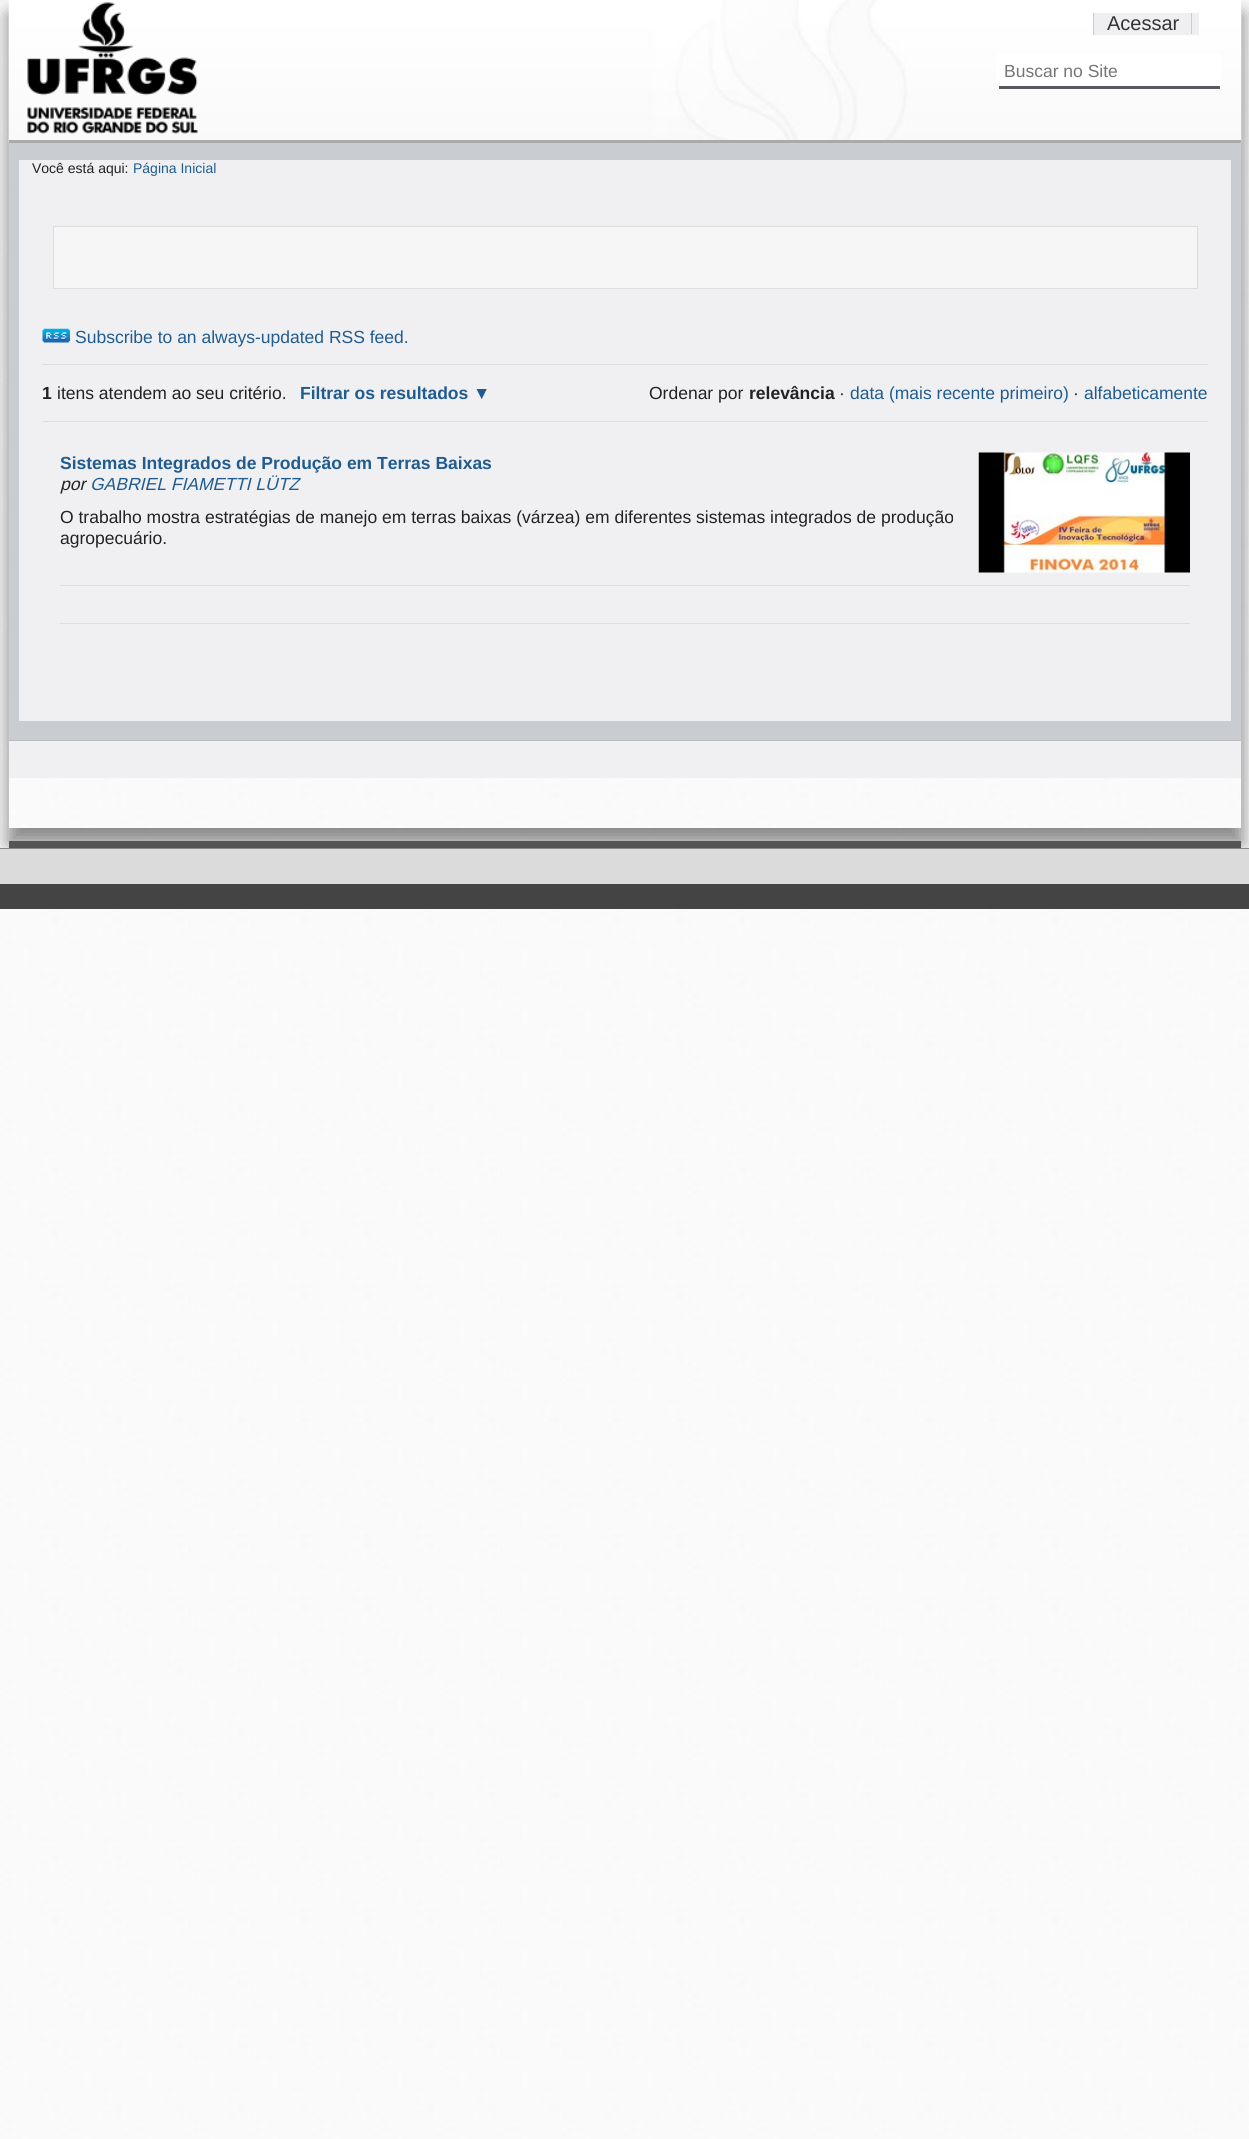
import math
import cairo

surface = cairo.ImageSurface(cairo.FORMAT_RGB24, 1249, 2139)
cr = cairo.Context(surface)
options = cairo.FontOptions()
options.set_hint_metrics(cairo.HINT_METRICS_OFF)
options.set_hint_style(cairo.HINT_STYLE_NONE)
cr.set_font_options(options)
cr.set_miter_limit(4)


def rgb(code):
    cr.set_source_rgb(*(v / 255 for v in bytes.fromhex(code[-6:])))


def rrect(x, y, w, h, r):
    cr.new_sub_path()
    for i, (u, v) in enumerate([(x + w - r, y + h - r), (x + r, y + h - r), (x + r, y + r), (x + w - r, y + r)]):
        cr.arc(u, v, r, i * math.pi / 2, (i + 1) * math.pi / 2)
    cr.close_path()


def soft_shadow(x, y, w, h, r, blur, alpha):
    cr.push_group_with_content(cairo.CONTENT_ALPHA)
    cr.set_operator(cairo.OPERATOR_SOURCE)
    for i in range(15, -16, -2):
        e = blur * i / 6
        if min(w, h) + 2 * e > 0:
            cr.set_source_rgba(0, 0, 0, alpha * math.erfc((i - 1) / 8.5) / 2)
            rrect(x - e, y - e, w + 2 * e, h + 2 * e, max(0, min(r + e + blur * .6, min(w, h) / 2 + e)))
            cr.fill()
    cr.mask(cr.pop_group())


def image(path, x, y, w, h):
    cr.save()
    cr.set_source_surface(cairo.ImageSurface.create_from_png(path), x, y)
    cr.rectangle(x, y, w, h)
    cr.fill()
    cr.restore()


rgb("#ffffff")
cr.paint()
image("img/1.png", 0, 0, 1249, 2139)
cr.save()
cr.set_fill_rule(cairo.FILL_RULE_EVEN_ODD)
cr.new_path()
cr.move_to(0, 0)
cr.line_to(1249, 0)
cr.line_to(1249, 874)
cr.line_to(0, 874)
cr.close_path()
cr.move_to(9, 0)
cr.line_to(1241, 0)
cr.line_to(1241, 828)
cr.line_to(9, 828)
cr.close_path()
cr.clip()
rgb("#888888")
soft_shadow(8, 14, 1235, 830, 0, 9.5, 1)
cr.restore()
image("img/2.png", 8, 0, 1234, 143)
rgb("#aaaaaa")
cr.rectangle(9, 140, 1232, 3)
cr.fill()
image("img/3.png", 27, 2, 171, 132)
for x, y, w, h, color in [
    (1094, 13, 105, 22, "#efeff2"),
    (1093, 13, 1, 22, "#cccccc"),
    (1191, 13, 1, 21, "#cccccc"),
]:
    rgb(color)
    cr.rectangle(x, y, w, h)
    cr.fill()
rgb("#ffffff")
rrect(996, 53, 225, 36, 4)
cr.fill()
for x, y, w, h, color in [
    (999, 86, 221, 3, "#595a5f"),
    (9, 143, 1232, 597, "#c9ccd1"),
    (9, 740, 1232, 1, "#bbbbbb"),
    (19, 160, 1212, 561, "#f0f0f2"),
]:
    rgb(color)
    cr.rectangle(x, y, w, h)
    cr.fill()
rgb("#f6f6f7")
cr.rectangle(53.5, 226.5, 1144, 62)
cr.fill_preserve()
rgb("#dddddd")
cr.set_line_width(1)
cr.stroke()
image("img/4.png", 42, 328, 28, 15)
for x, y, w, h, color in [
    (43, 364, 1165, 1, "#dddddd"),
    (43, 421, 1165, 1, "#dddddd"),
    (60, 623, 1130, 1, "#dddddd"),
    (60, 585, 1130, 1, "#dddddd"),
]:
    rgb(color)
    cr.rectangle(x, y, w, h)
    cr.fill()
image("img/5.png", 978, 452, 212, 121)
for x, y, w, h, color in [
    (9, 741, 1232, 37, "#f0f0f2"),
    (9, 841, 1232, 7, "#555555"),
    (0, 849, 1249, 35, "#dbdbdb"),
    (0, 848, 1249, 1, "#888888"),
    (0, 884, 1249, 25, "#444444"),
]:
    rgb(color)
    cr.rectangle(x, y, w, h)
    cr.fill()
cr.select_font_face("Arimo")
cr.set_font_size(20)
rgb("#333333")
cr.move_to(1107, 30)
cr.show_text("Acessar")
cr.select_font_face("Liberation Sans")
cr.set_font_size(17.5)
rgb("#757575")
cr.move_to(1004, 77)
cr.show_text("Buscar no Site")
cr.select_font_face("Arimo")
cr.set_font_size(14)
rgb("#222222")
cr.move_to(32, 173)
cr.show_text("Você está aqui:")
rgb("#205c90")
cr.move_to(133, 173)
cr.show_text("Página Inicial")
cr.set_font_size(17.5)
cr.move_to(75, 343)
cr.show_text("Subscribe to an always-updated RSS feed.")
cr.select_font_face("Arimo", cairo.FONT_SLANT_NORMAL, cairo.FONT_WEIGHT_BOLD)
rgb("#222222")
cr.move_to(42, 399)
cr.show_text("1")
cr.select_font_face("Arimo")
cr.move_to(57, 399)
cr.show_text("itens atendem ao seu critério.")
cr.select_font_face("Arimo", cairo.FONT_SLANT_NORMAL, cairo.FONT_WEIGHT_BOLD)
rgb("#205c90")
cr.move_to(300, 399)
cr.show_text("Filtrar os resultados")
cr.select_font_face("Liberation Sans", cairo.FONT_SLANT_NORMAL, cairo.FONT_WEIGHT_BOLD)
cr.move_to(473, 399)
cr.show_text("▼")
cr.select_font_face("Arimo")
rgb("#222222")
cr.move_to(649, 399)
cr.show_text("Ordenar por")
cr.select_font_face("Arimo", cairo.FONT_SLANT_NORMAL, cairo.FONT_WEIGHT_BOLD)
cr.move_to(749, 399)
cr.show_text("relevância")
cr.select_font_face("Arimo")
cr.move_to(839, 399)
cr.show_text("·")
rgb("#205c90")
cr.move_to(850, 399)
cr.show_text("data (mais recente primeiro)")
rgb("#222222")
cr.move_to(1073, 399)
cr.show_text("·")
rgb("#205c90")
cr.move_to(1084, 399)
cr.show_text("alfabeticamente")
cr.select_font_face("Arimo", cairo.FONT_SLANT_NORMAL, cairo.FONT_WEIGHT_BOLD)
cr.move_to(60, 469)
cr.show_text("Sistemas Integrados de Produção em Terras Baixas")
cr.select_font_face("Arimo", cairo.FONT_SLANT_ITALIC)
rgb("#222222")
cr.move_to(60, 490)
cr.show_text("por")
rgb("#205c90")
cr.move_to(90, 490)
cr.show_text("GABRIEL FIAMETTI LÜTZ")
cr.select_font_face("Arimo")
rgb("#222222")
cr.move_to(60, 523)
cr.show_text("O trabalho mostra estratégias de manejo em terras baixas (várzea) em diferentes sistemas integrados de produção")
cr.move_to(60, 544)
cr.show_text("agropecuário.")
surface.write_to_png("page.png")
